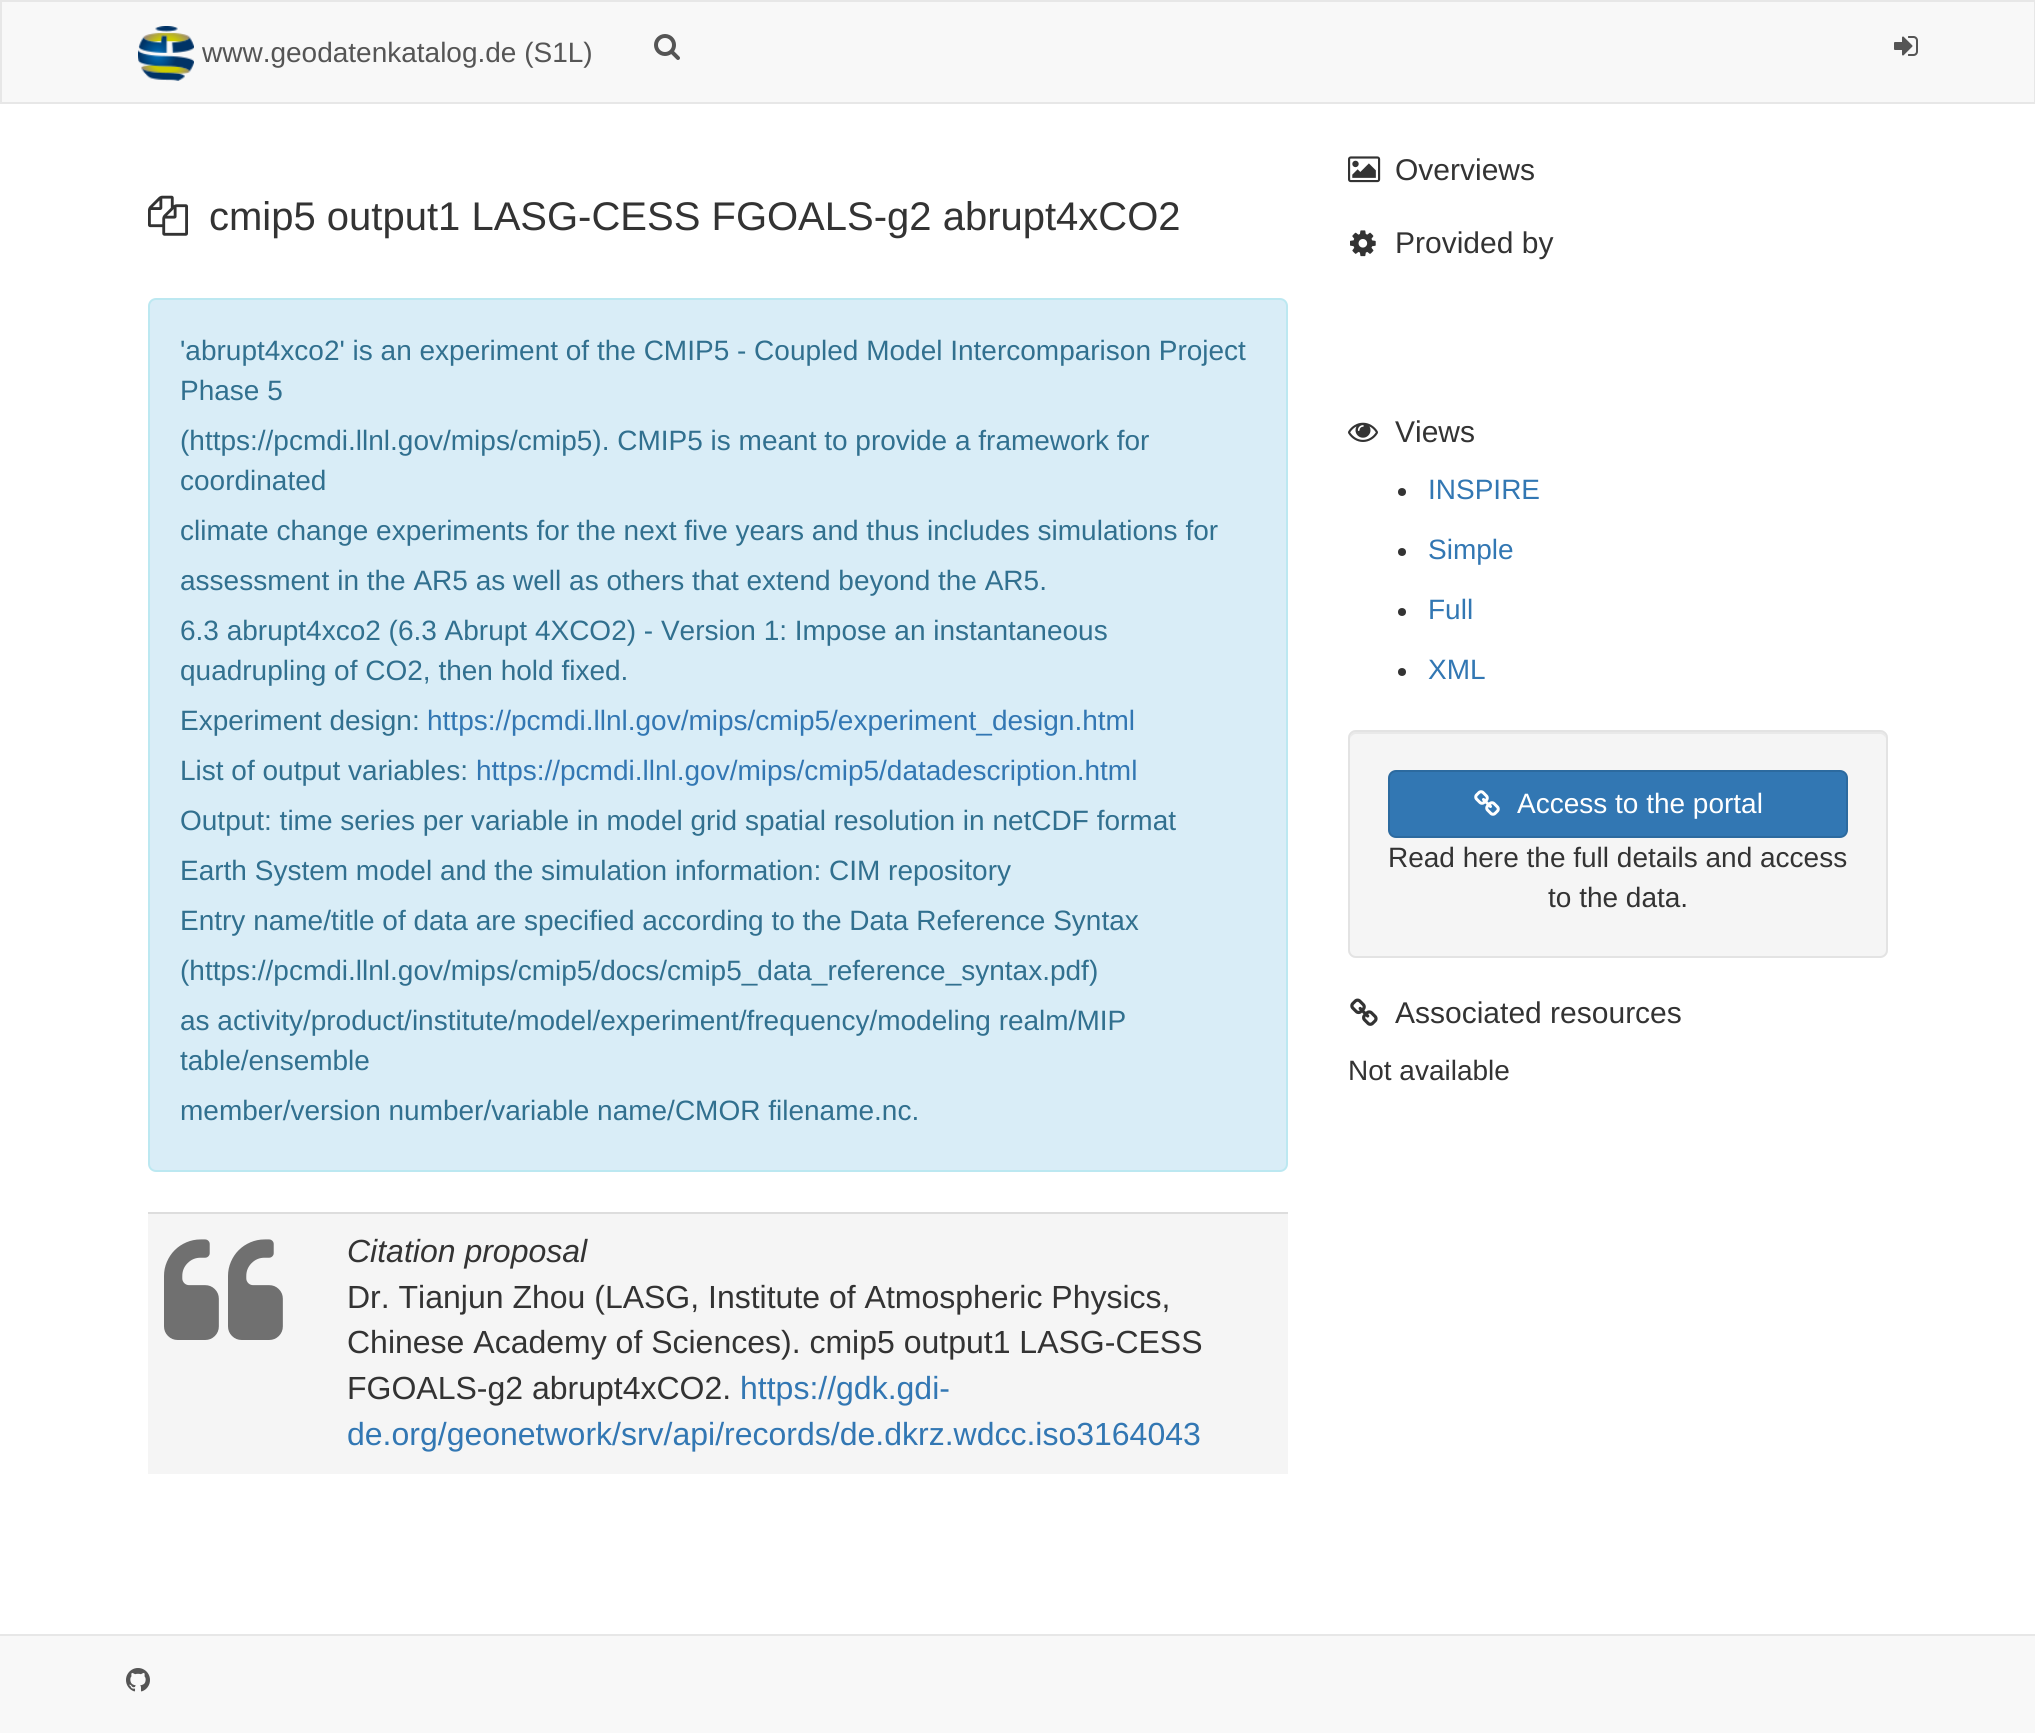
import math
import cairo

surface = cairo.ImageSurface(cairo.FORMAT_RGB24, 2035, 1733)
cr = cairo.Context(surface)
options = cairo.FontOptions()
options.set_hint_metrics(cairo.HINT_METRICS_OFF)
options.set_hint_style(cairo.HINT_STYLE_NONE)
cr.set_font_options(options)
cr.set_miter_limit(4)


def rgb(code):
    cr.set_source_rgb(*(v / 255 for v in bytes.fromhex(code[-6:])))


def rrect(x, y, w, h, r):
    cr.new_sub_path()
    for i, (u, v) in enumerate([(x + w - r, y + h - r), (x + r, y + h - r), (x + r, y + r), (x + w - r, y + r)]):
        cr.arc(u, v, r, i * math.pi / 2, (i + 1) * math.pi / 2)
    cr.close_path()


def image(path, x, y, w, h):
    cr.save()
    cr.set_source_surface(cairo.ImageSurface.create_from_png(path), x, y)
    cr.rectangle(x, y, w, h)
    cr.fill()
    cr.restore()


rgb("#ffffff")
cr.paint()
rgb("#f8f8f8")
cr.rectangle(1, 1, 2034, 102)
cr.fill_preserve()
rgb("#e7e7e7")
cr.stroke()
image("img/1.png", 138, 26, 56, 55)
image("img/2.png", 654, 34, 26, 26)
image("img/3.png", 1894, 36, 24, 20)
image("img/4.png", 148, 195, 40, 41)
rgb("#d9edf7")
rrect(149, 299, 1138, 872, 7)
cr.fill_preserve()
rgb("#bce8f1")
cr.stroke()
rgb("#f5f5f5")
cr.rectangle(148, 1214, 1140, 260)
cr.fill()
image("img/5.png", 164, 1239, 119, 101)
rgb("#dddddd")
cr.rectangle(148, 1212, 1140, 2)
cr.fill()
image("img/6.png", 1348, 156, 33, 27)
image("img/7.png", 1350, 230, 26, 27)
image("img/8.png", 1348, 422, 30, 20)
rgb("#333333")
cr.arc(1402, 492, 4, 0, 2 * math.pi)
cr.fill()
cr.arc(1402, 552, 4, 0, 2 * math.pi)
cr.fill()
cr.arc(1402, 612, 4, 0, 2 * math.pi)
cr.fill()
cr.arc(1402, 672, 4, 0, 2 * math.pi)
cr.fill()
rgb("#f5f5f5")
rrect(1348, 730, 540, 228, 8)
cr.fill()
rgb("#e9e9e9")
cr.new_path()
cr.move_to(1356, 734)
cr.line_to(1880, 734)
cr.curve_to(1883, 734, 1886, 737, 1886, 740)
cr.curve_to(1886, 736, 1885, 732, 1880, 732)
cr.line_to(1356, 732)
cr.curve_to(1351, 732, 1350, 736, 1350, 740)
cr.curve_to(1350, 737, 1353, 734, 1356, 734)
cr.close_path()
cr.fill()
rrect(1349, 731, 538, 226, 7)
rgb("#e3e3e3")
cr.stroke()
rgb("#3277b3")
rrect(1389, 771, 458, 66, 7)
cr.fill_preserve()
rgb("#2c6a9f")
cr.stroke()
image("img/9.png", 1474, 790, 26, 26)
image("img/10.png", 1350, 998, 28, 28)
rgb("#f8f8f8")
cr.rectangle(0, 1636, 2035, 97)
cr.fill()
rgb("#e7e7e7")
cr.rectangle(0, 1634, 2035, 2)
cr.fill()
image("img/11.png", 126, 1668, 24, 24)
cr.select_font_face("Liberation Sans")
cr.set_font_size(28)
rgb("#555555")
cr.move_to(202, 62)
cr.show_text("www.geodatenkatalog.de (S1L)")
cr.set_font_size(40)
rgb("#333333")
cr.move_to(209, 230)
cr.show_text("cmip5 output1 LASG-CESS FGOALS-g2 abrupt4xCO2")
cr.set_font_size(28)
rgb("#31708f")
for x, y, s in [
    (180, 360, "'abrupt4xco2' is an experiment of the CMIP5 - Coupled Model Intercomparison Project"),
    (180, 400, "Phase 5"),
    (180, 450, "(https://pcmdi.llnl.gov/mips/cmip5). CMIP5 is meant to provide a framework for"),
    (180, 490, "coordinated"),
    (180, 540, "climate change experiments for the next five years and thus includes simulations for"),
    (180, 590, "assessment in the AR5 as well as others that extend beyond the AR5."),
    (180, 640, "6.3 abrupt4xco2 (6.3 Abrupt 4XCO2) - Version 1: Impose an instantaneous"),
    (180, 680, "quadrupling of CO2, then hold fixed."),
    (180, 730, "Experiment design:"),
]:
    cr.move_to(x, y)
    cr.show_text(s)
rgb("#3277b3")
cr.move_to(427, 730)
cr.show_text("https://pcmdi.llnl.gov/mips/cmip5/experiment_design.html")
rgb("#31708f")
cr.move_to(180, 780)
cr.show_text("List of output variables:")
rgb("#3277b3")
cr.move_to(476, 780)
cr.show_text("https://pcmdi.llnl.gov/mips/cmip5/datadescription.html")
rgb("#31708f")
for x, y, s in [
    (180, 830, "Output: time series per variable in model grid spatial resolution in netCDF format"),
    (180, 880, "Earth System model and the simulation information: CIM repository"),
    (180, 930, "Entry name/title of data are specified according to the Data Reference Syntax"),
    (180, 980, "(https://pcmdi.llnl.gov/mips/cmip5/docs/cmip5_data_reference_syntax.pdf)"),
    (180, 1030, "as activity/product/institute/model/experiment/frequency/modeling realm/MIP"),
    (180, 1070, "table/ensemble"),
    (180, 1120, "member/version number/variable name/CMOR filename.nc."),
]:
    cr.move_to(x, y)
    cr.show_text(s)
cr.select_font_face("Liberation Sans", cairo.FONT_SLANT_ITALIC)
cr.set_font_size(32)
rgb("#333333")
cr.move_to(347, 1262)
cr.show_text("Citation proposal")
cr.select_font_face("Liberation Sans")
for x, y, s in [
    (347, 1308, "Dr. Tianjun Zhou (LASG, Institute of Atmospheric Physics,"),
    (347, 1353, "Chinese Academy of Sciences). cmip5 output1 LASG-CESS"),
    (347, 1399, "FGOALS-g2 abrupt4xCO2."),
]:
    cr.move_to(x, y)
    cr.show_text(s)
rgb("#3277b3")
cr.move_to(740, 1399)
cr.show_text("https://gdk.gdi-")
cr.move_to(347, 1445)
cr.show_text("de.org/geonetwork/srv/api/records/de.dkrz.wdcc.iso3164043")
cr.set_font_size(30)
rgb("#333333")
for x, y, s in [
    (1395, 180, "Overviews"),
    (1395, 253, "Provided by"),
    (1395, 442, "Views"),
]:
    cr.move_to(x, y)
    cr.show_text(s)
cr.set_font_size(28)
rgb("#3277b3")
for x, y, s in [
    (1428, 499, "INSPIRE"),
    (1428, 559, "Simple"),
    (1428, 619, "Full"),
    (1428, 679, "XML"),
]:
    cr.move_to(x, y)
    cr.show_text(s)
rgb("#ffffff")
cr.move_to(1517, 813)
cr.show_text("Access to the portal")
rgb("#333333")
cr.move_to(1388, 867)
cr.show_text("Read here the full details and access")
cr.move_to(1548, 907)
cr.show_text("to the data.")
cr.set_font_size(30)
cr.move_to(1395, 1023)
cr.show_text("Associated resources")
cr.set_font_size(28)
cr.move_to(1348, 1080)
cr.show_text("Not available")
surface.write_to_png("page.png")
